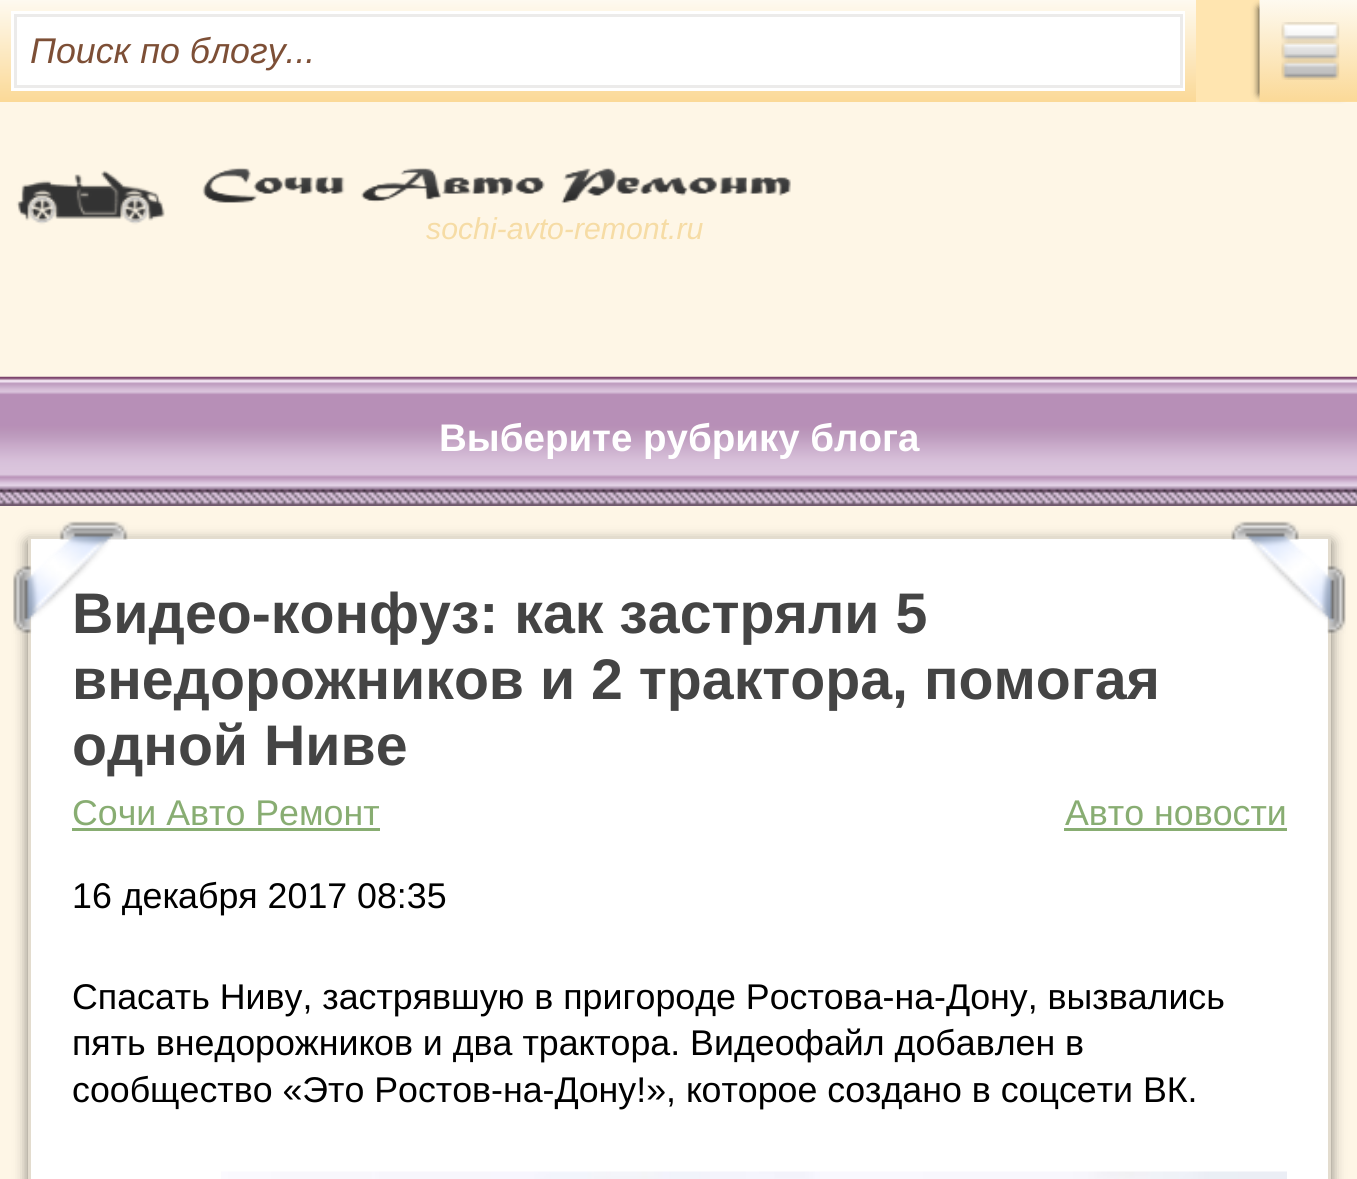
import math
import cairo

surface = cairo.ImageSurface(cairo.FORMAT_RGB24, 1357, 1179)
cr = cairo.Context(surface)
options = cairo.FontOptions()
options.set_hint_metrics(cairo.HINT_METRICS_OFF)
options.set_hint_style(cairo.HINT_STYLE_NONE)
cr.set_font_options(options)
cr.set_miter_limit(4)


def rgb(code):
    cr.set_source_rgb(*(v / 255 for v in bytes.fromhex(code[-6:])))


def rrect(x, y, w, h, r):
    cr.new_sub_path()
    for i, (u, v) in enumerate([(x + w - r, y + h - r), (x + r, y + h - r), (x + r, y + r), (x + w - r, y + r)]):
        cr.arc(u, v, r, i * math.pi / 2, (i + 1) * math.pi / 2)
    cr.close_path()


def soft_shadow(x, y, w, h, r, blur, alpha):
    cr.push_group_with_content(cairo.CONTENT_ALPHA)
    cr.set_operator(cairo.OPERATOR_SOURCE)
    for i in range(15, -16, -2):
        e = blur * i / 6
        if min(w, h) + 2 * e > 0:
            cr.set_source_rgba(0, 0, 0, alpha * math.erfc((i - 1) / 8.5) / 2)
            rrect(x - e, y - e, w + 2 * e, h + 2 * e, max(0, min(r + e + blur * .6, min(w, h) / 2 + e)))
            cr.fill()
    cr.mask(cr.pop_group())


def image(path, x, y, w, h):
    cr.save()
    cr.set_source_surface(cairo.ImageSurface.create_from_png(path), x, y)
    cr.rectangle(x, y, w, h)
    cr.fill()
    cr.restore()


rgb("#fef6e6")
cr.paint()
rgb("#ffe5b0")
cr.rectangle(1196, 0, 161, 102)
cr.fill()
gradient = cairo.LinearGradient(598, 0, 598, 102)
gradient.add_color_stop_rgba(0, 0.996, 0.98, 0.941, 1)
gradient.add_color_stop_rgba(1, 0.984, 0.851, 0.592, 1)
cr.set_source(gradient)
cr.rectangle(0, 0, 1196, 102)
cr.fill()
cr.rectangle(12.5, 12.5, 1171, 77)
rgb("#ffffff")
cr.set_line_width(3)
cr.stroke()
cr.rectangle(15.5, 15.5, 1166, 71)
cr.fill_preserve()
rgb("#ecebea")
cr.stroke()
rgb("#000000")
soft_shadow(1260, 8, 82, 86, 0, 4, 1)
image("img/1.png", 1259, 0, 98, 102)
image("img/2.png", 16, 170, 149, 55)
image("img/3.png", 202, 167, 589, 37)
image("img/4.png", 0, 376, 1357, 130)
soft_shadow(28, 542, 1303, 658, 0, 7, 0.5)
for x, y, w, h, color in [
    (31, 539, 1297, 640, "#ffffff"),
    (28, 536, 1303, 3, "#e3dcce"),
    (1328, 536, 3, 643, "#e3dcce"),
    (28, 536, 3, 643, "#e3dcce"),
]:
    rgb(color)
    cr.rectangle(x, y, w, h)
    cr.fill()
image("img/6.png", 1231, 521, 115, 114)
rgb("#88ad72")
cr.rectangle(72, 828, 308, 3)
cr.fill()
cr.rectangle(1064, 828, 223, 3)
cr.fill()
image("img/7.png", 221, 1171, 1066, 8)
cr.select_font_face("Liberation Sans", cairo.FONT_SLANT_ITALIC)
cr.set_font_size(35.75)
rgb("#7d4f36")
cr.move_to(30, 63)
cr.show_text("Поиск по блогу...")
cr.set_font_size(30.25)
rgb("#f6dca5")
cr.move_to(426, 239)
cr.show_text("sochi-avto-remont.ru")
cr.select_font_face("Liberation Sans", cairo.FONT_SLANT_NORMAL, cairo.FONT_WEIGHT_BOLD)
cr.set_font_size(38.5)
rgb("#ffffff")
cr.move_to(439, 451)
cr.show_text("Выберите рубрику блога")
cr.set_font_size(57.25)
rgb("#444444")
cr.move_to(72, 633)
cr.show_text("Видео-конфуз: как застряли 5")
image("img/5.png", 13, 521, 115, 114)
cr.move_to(72, 699)
cr.show_text("внедорожников и 2 трактора, помогая")
cr.move_to(72, 765)
cr.show_text("одной Ниве")
cr.select_font_face("Liberation Sans")
cr.set_font_size(35.75)
rgb("#88ad72")
cr.move_to(72, 825)
cr.show_text("Сочи Авто Ремонт")
cr.move_to(1065, 825)
cr.show_text("Авто новости")
rgb("#000000")
for x, y, s in [
    (72, 908, "16 декабря 2017 08:35"),
    (72, 1009, "Спасать Ниву, застрявшую в пригороде Ростова-на-Дону, вызвались"),
    (72, 1055, "пять внедорожников и два трактора. Видеофайл добавлен в"),
    (72, 1102, "сообщество «Это Ростов-на-Дону!», которое создано в соцсети ВК."),
]:
    cr.move_to(x, y)
    cr.show_text(s)
surface.write_to_png("page.png")
